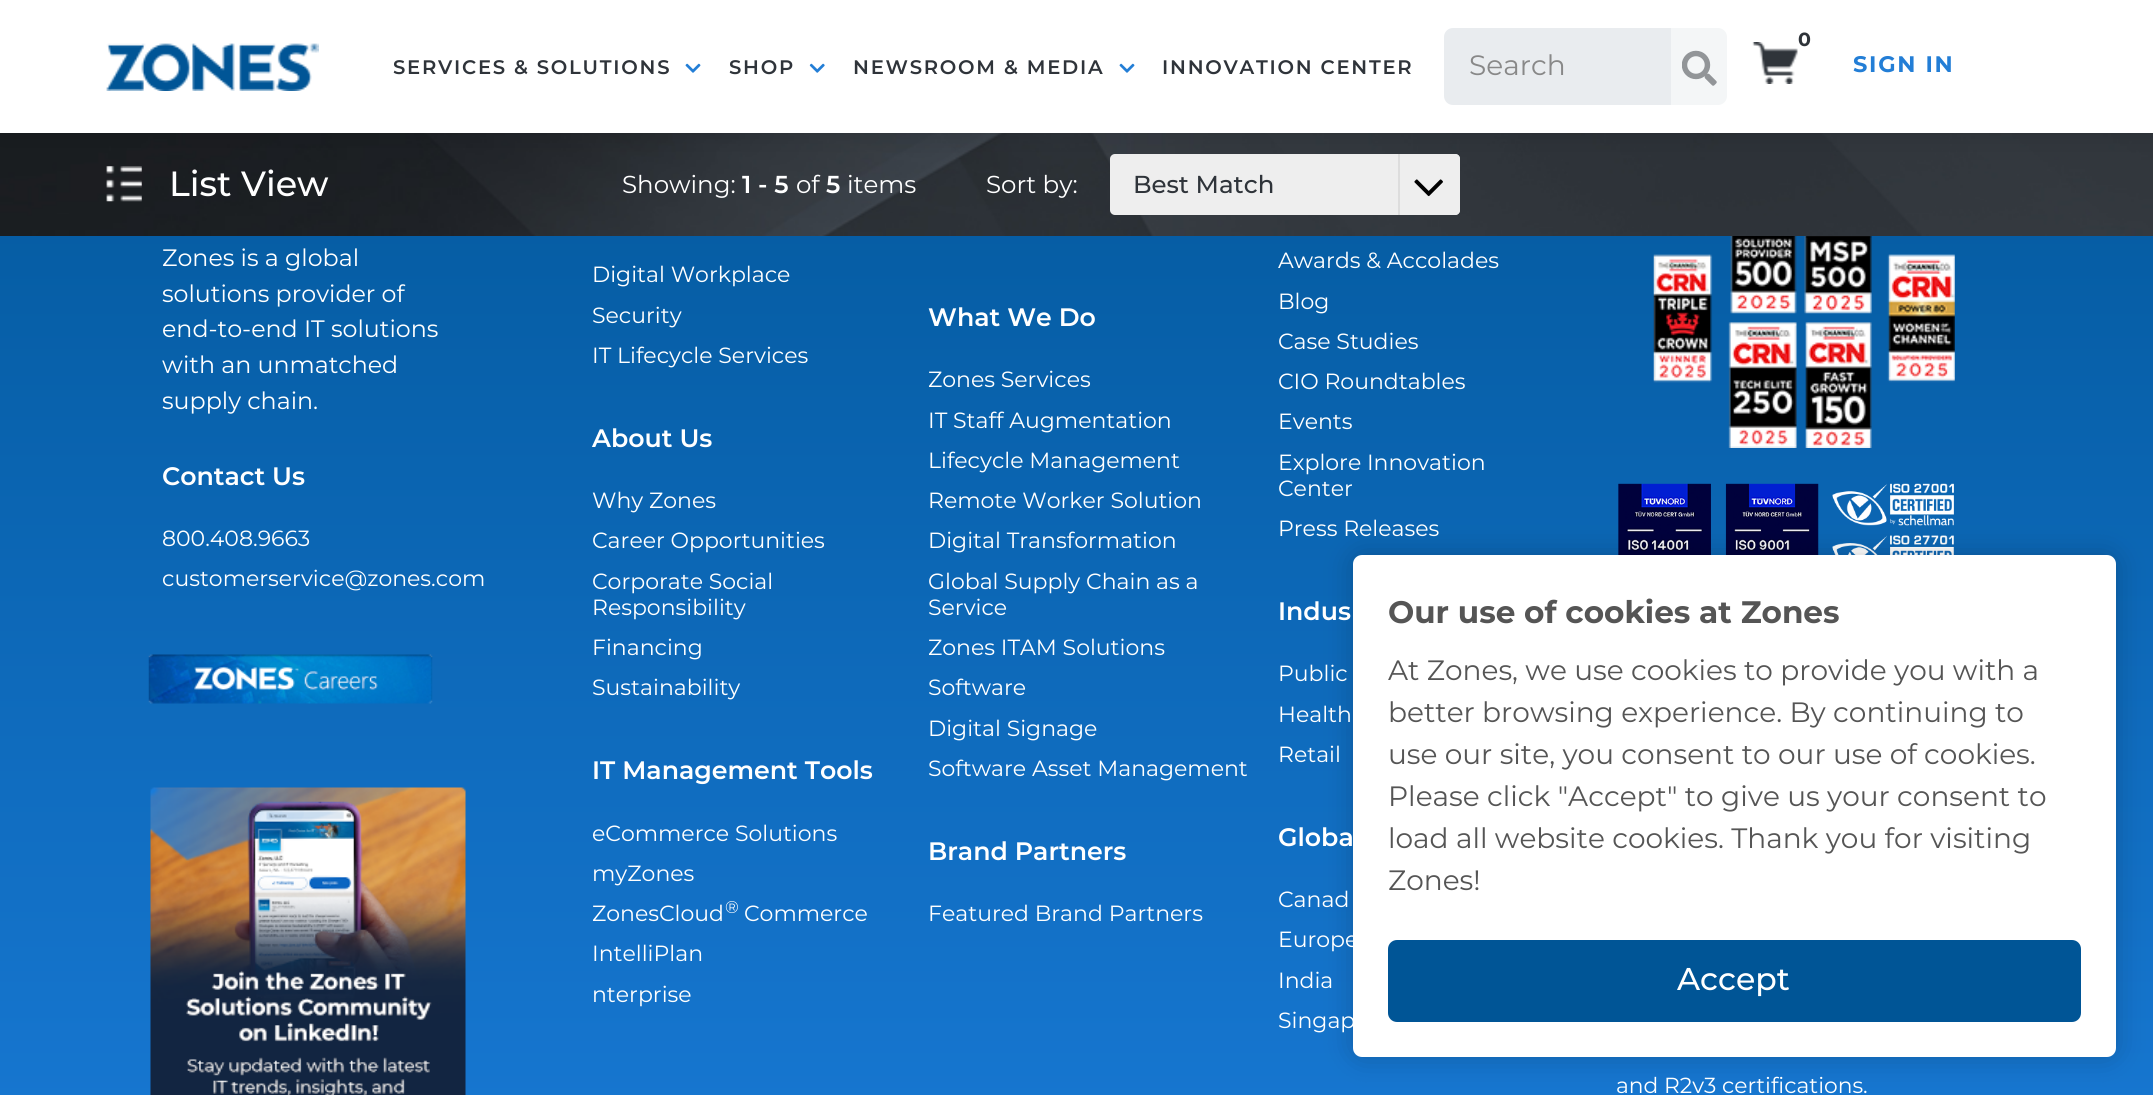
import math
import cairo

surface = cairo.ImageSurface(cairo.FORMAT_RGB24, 2153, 1095)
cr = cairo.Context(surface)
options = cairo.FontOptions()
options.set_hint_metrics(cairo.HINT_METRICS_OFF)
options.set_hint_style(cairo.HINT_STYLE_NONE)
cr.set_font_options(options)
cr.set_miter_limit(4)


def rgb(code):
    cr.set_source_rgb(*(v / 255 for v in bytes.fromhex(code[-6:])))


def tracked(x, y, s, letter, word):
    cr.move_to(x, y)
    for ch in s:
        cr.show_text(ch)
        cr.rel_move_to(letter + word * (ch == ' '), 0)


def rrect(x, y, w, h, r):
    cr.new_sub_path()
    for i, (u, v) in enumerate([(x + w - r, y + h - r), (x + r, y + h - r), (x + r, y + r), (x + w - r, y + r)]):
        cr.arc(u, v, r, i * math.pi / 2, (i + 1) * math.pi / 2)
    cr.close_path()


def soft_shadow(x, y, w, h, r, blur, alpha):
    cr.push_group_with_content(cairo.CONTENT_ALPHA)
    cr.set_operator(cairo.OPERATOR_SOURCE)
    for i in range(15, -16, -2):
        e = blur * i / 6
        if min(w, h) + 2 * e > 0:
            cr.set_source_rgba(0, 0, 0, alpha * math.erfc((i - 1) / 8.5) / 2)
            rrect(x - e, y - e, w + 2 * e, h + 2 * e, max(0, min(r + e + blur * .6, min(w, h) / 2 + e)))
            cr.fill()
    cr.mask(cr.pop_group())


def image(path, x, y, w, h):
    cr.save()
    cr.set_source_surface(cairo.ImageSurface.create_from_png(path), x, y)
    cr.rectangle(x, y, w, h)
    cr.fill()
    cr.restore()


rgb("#ffffff")
cr.paint()
image("img/6.png", 0, 133, 2153, 103)
image("img/7.png", 106, 166, 36, 36)
rgb("#eeeeee")
rrect(1110, 154, 350, 61, 5)
cr.fill()
cr.new_path()
cr.move_to(1398, 154)
cr.line_to(1455, 154)
cr.curve_to(1458, 154, 1460, 156, 1460, 159)
cr.line_to(1460, 210)
cr.curve_to(1460, 213, 1458, 215, 1455, 215)
cr.line_to(1398, 215)
cr.close_path()
cr.fill()
rgb("#dddddd")
cr.rectangle(1398, 154, 2, 61)
cr.fill()
rgb("#000000")
soft_shadow(0, 0, 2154, 133, 0, 13, 0.15)
rgb("#ffffff")
cr.rectangle(0, 0, 2153, 133)
cr.fill()
image("img/1.png", 106, 43, 213, 48)
image("img/2.png", 685, 63, 16, 10)
image("img/3.png", 809, 63, 16, 10)
image("img/2.png", 1119, 63, 16, 10)
image("img/4.png", 1752, 42, 46, 42)
rgb("#e9ecef")
cr.new_path()
cr.move_to(1453, 28)
cr.line_to(1671, 28)
cr.line_to(1671, 105)
cr.line_to(1453, 105)
cr.curve_to(1448, 105, 1444, 101, 1444, 96)
cr.line_to(1444, 37)
cr.curve_to(1444, 32, 1448, 28, 1453, 28)
cr.close_path()
cr.fill()
rgb("#f4f6f7")
cr.new_path()
cr.move_to(1671, 28)
cr.line_to(1718, 28)
cr.curve_to(1723, 28, 1727, 32, 1727, 37)
cr.line_to(1727, 96)
cr.curve_to(1727, 101, 1723, 105, 1718, 105)
cr.line_to(1671, 105)
cr.close_path()
cr.fill()
image("img/5.png", 1682, 50, 35, 36)
gradient = cairo.LinearGradient(1077, 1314, 1077, -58)
gradient.add_color_stop_rgba(0, 0.102, 0.486, 0.855, 1)
gradient.add_color_stop_rgba(1, 0, 0.333, 0.588, 1)
cr.set_source(gradient)
cr.rectangle(0, 236, 2153, 859)
cr.fill()
image("img/12.png", 1618, 483, 336, 72)
rgb("#020203")
soft_shadow(1353, 555, 763, 502, 9, 14, 0.2)
rgb("#ffffff")
rrect(1353, 555, 763, 502, 9)
cr.fill()
rgb("#005596")
rrect(1388, 940, 693, 82, 9)
cr.fill()
image("img/8.png", 1414, 179, 29, 18)
image("img/9.png", 148, 654, 285, 50)
image("img/10.png", 150, 787, 316, 308)
image("img/11.png", 1653, 236, 302, 212)
cr.select_font_face("Montserrat SemiBold")
cr.set_font_size(19.6)
rgb("#2f343a")
for x, y, s in [
    (393, 74, "SERVICES & SOLUTIONS"),
    (729, 74, "SHOP"),
    (853, 74, "NEWSROOM & MEDIA"),
    (1162, 74, "INNOVATION CENTER"),
]:
    tracked(x, y, s, 1.75, 0)
cr.select_font_face("Montserrat", cairo.FONT_SLANT_NORMAL, cairo.FONT_WEIGHT_BOLD)
cr.set_font_size(19)
cr.move_to(1798, 46)
cr.show_text("0")
cr.select_font_face("Montserrat")
cr.set_font_size(28)
rgb("#888888")
cr.move_to(1469, 75)
cr.show_text("Search")
cr.select_font_face("Montserrat", cairo.FONT_SLANT_NORMAL, cairo.FONT_WEIGHT_BOLD)
cr.set_font_size(22.5)
rgb("#237ed6")
tracked(1853, 72, "SIGN IN", 1.75, 0)
cr.set_font_size(31.1)
rgb("#555555")
cr.move_to(1388, 623)
cr.show_text("Our use of cookies at Zones")
cr.select_font_face("Montserrat")
cr.set_font_size(28)
for x, y, s in [
    (1388, 680, "At Zones, we use cookies to provide you with a"),
    (1388, 722, "better browsing experience. By continuing to"),
    (1388, 764, "use our site, you consent to our use of cookies."),
    (1388, 806, "Please click \"Accept\" to give us your consent to"),
    (1388, 848, "load all website cookies. Thank you for visiting"),
    (1388, 890, "Zones!"),
]:
    cr.move_to(x, y)
    cr.show_text(s)
cr.select_font_face("Montserrat Medium")
cr.set_font_size(31.5)
rgb("#ffffff")
cr.move_to(1677, 990)
cr.show_text("Accept")
cr.set_font_size(35)
cr.move_to(169, 196)
cr.show_text("List View")
cr.select_font_face("Montserrat")
cr.set_font_size(24.5)
cr.move_to(622, 193)
cr.show_text("Showing:")
cr.select_font_face("Montserrat SemiBold")
cr.move_to(742, 193)
cr.show_text("1 - 5")
cr.select_font_face("Montserrat")
cr.move_to(796, 193)
cr.show_text("of")
cr.select_font_face("Montserrat SemiBold")
cr.move_to(826, 193)
cr.show_text("5")
cr.select_font_face("Montserrat")
cr.move_to(847, 193)
cr.show_text("items")
cr.move_to(986, 193)
cr.show_text("Sort by:")
cr.select_font_face("Montserrat Medium")
rgb("#2f343a")
cr.move_to(1133, 193)
cr.show_text("Best Match")
cr.select_font_face("Montserrat")
cr.set_font_size(23.75)
rgb("#ffffff")
for x, y, s in [
    (162, 266, "Zones is a global"),
    (162, 302, "solutions provider of"),
    (162, 337, "end-to-end IT solutions"),
    (162, 373, "with an unmatched"),
    (162, 409, "supply chain."),
]:
    cr.move_to(x, y)
    cr.show_text(s)
cr.select_font_face("Montserrat SemiBold")
cr.set_font_size(25.25)
cr.move_to(162, 485)
cr.show_text("Contact Us")
cr.select_font_face("Montserrat")
cr.set_font_size(22)
for x, y, s in [
    (162, 546, "800.408.9663"),
    (162, 586, "customerservice@zones.com"),
    (592, 282, "Digital Workplace"),
    (592, 323, "Security"),
    (592, 363, "IT Lifecycle Services"),
]:
    cr.move_to(x, y)
    cr.show_text(s)
cr.select_font_face("Montserrat SemiBold")
cr.set_font_size(25.25)
cr.move_to(592, 447)
cr.show_text("About Us")
cr.select_font_face("Montserrat")
cr.set_font_size(22)
for x, y, s in [
    (592, 508, "Why Zones"),
    (592, 548, "Career Opportunities"),
    (592, 589, "Corporate Social"),
    (592, 615, "Responsibility"),
    (592, 655, "Financing"),
    (592, 695, "Sustainability"),
]:
    cr.move_to(x, y)
    cr.show_text(s)
cr.select_font_face("Montserrat SemiBold")
cr.set_font_size(25.25)
cr.move_to(592, 779)
cr.show_text("IT Management Tools")
cr.select_font_face("Montserrat")
cr.set_font_size(22)
for x, y, s in [
    (592, 841, "eCommerce Solutions"),
    (592, 881, "myZones"),
    (592, 921, "ZonesCloud"),
]:
    cr.move_to(x, y)
    cr.show_text(s)
cr.set_font_size(17)
cr.move_to(725, 913)
cr.show_text("®")
cr.set_font_size(22)
for x, y, s in [
    (744, 921, "Commerce"),
    (592, 961, "IntelliPlan"),
    (592, 1002, "nterprise"),
]:
    cr.move_to(x, y)
    cr.show_text(s)
cr.select_font_face("Montserrat SemiBold")
cr.set_font_size(25.25)
cr.move_to(928, 326)
cr.show_text("What We Do")
cr.select_font_face("Montserrat")
cr.set_font_size(22)
for x, y, s in [
    (928, 387, "Zones Services"),
    (928, 428, "IT Staff Augmentation"),
    (928, 468, "Lifecycle Management"),
    (928, 508, "Remote Worker Solution"),
    (928, 548, "Digital Transformation"),
    (928, 589, "Global Supply Chain as a"),
    (928, 615, "Service"),
    (928, 655, "Zones ITAM Solutions"),
    (928, 695, "Software"),
    (928, 736, "Digital Signage"),
    (928, 776, "Software Asset Management"),
]:
    cr.move_to(x, y)
    cr.show_text(s)
cr.select_font_face("Montserrat SemiBold")
cr.set_font_size(25.25)
cr.move_to(928, 860)
cr.show_text("Brand Partners")
cr.select_font_face("Montserrat")
cr.set_font_size(22)
for x, y, s in [
    (928, 921, "Featured Brand Partners"),
    (1278, 268, "Awards & Accolades"),
    (1278, 309, "Blog"),
    (1278, 349, "Case Studies"),
    (1278, 389, "CIO Roundtables"),
    (1278, 429, "Events"),
    (1278, 470, "Explore Innovation"),
    (1278, 496, "Center"),
    (1278, 536, "Press Releases"),
]:
    cr.move_to(x, y)
    cr.show_text(s)
cr.select_font_face("Montserrat SemiBold")
cr.set_font_size(25.25)
cr.move_to(1278, 620)
cr.show_text("Indus")
cr.select_font_face("Montserrat")
cr.set_font_size(22)
for x, y, s in [
    (1278, 681, "Public"),
    (1278, 722, "Health"),
    (1278, 762, "Retail"),
]:
    cr.move_to(x, y)
    cr.show_text(s)
cr.select_font_face("Montserrat SemiBold")
cr.set_font_size(25.25)
cr.move_to(1278, 846)
cr.show_text("Globa")
cr.select_font_face("Montserrat")
cr.set_font_size(22)
for x, y, s in [
    (1278, 907, "Canad"),
    (1278, 947, "Europe"),
    (1278, 988, "India"),
    (1278, 1028, "Singap"),
]:
    cr.move_to(x, y)
    cr.show_text(s)
cr.set_font_size(21.8)
cr.move_to(1616, 1093)
cr.show_text("and R2v3 certifications.")
surface.write_to_png("page.png")
